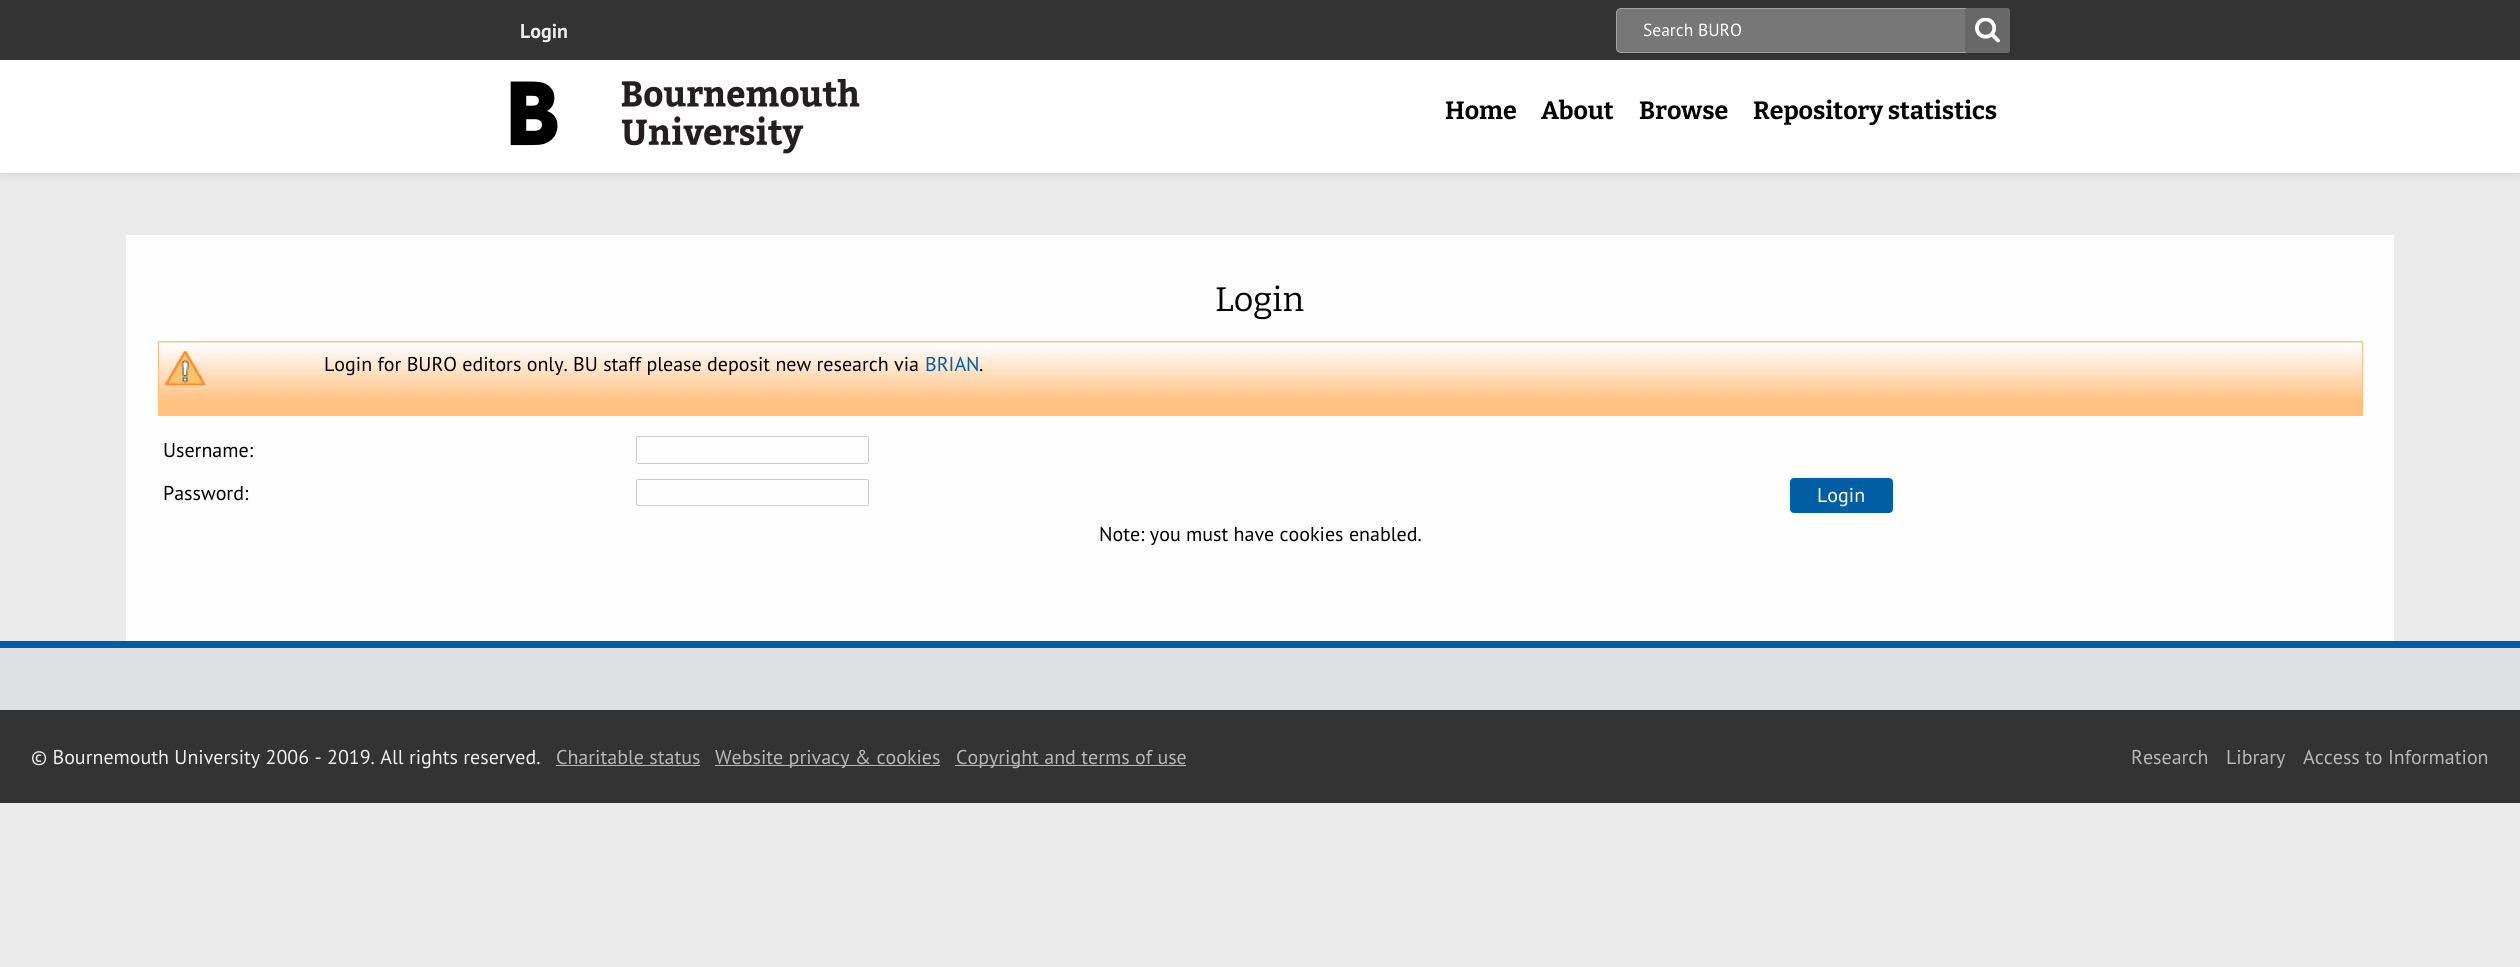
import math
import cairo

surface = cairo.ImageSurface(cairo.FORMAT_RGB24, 2520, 967)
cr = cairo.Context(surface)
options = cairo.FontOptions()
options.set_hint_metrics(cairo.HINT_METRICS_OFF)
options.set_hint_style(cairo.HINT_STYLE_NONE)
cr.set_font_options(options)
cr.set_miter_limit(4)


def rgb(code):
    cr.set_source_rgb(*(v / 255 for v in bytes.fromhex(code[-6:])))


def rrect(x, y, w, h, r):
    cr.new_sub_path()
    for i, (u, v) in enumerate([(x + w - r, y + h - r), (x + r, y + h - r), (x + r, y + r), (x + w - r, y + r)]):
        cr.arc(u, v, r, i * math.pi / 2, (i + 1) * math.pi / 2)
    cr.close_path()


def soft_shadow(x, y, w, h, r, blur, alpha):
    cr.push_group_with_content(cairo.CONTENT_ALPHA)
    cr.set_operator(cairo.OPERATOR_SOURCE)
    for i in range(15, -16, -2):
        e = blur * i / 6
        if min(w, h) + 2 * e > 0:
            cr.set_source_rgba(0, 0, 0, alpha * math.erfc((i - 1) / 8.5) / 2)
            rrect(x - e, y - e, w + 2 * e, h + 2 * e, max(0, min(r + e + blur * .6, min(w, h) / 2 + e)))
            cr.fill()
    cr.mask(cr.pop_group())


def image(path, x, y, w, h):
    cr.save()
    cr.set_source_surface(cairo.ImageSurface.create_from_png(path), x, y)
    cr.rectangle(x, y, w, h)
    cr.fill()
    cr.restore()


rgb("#eaeaea")
cr.paint()
rgb("#323232")
soft_shadow(0, 3, 2520, 172, 0, 5, 0.1)
rgb("#ffffff")
cr.rectangle(0, 60, 2520, 113)
cr.fill()
rgb("#333333")
cr.rectangle(0, 0, 2520, 60)
cr.fill()
rgb("#777777")
rrect(1616.5, 8.5, 393, 44, 4.5)
cr.fill_preserve()
rgb("#a3a3a3")
cr.set_line_width(1)
cr.stroke()
rgb("#686868")
rrect(1965, 8, 45, 45, 2.5)
cr.fill()
image("img/1.png", 1975, 18, 25, 25)
image("img/2.png", 510, 79, 350, 75)
rgb("#fefefe")
cr.rectangle(126, 235, 2268, 406)
cr.fill()
rgb("#ffc080")
cr.rectangle(159, 342, 2203, 73)
cr.fill()
image("img/3.png", 159, 342, 2203, 59)
cr.rectangle(158.5, 341.5, 2204, 74)
cr.stroke()
image("img/4.png", 165, 351, 40, 35)
rrect(636.5, 436.5, 232, 27, 2)
rgb("#cccccc")
cr.stroke()
rrect(636.5, 479.5, 232, 26, 2)
cr.stroke()
rgb("#005ea5")
rrect(1791.5, 479.5, 100, 32, 2.5)
cr.fill_preserve()
cr.set_line_width(3)
cr.stroke()
for x, y, w, h, color in [
    (0, 648, 2520, 62, "#dee0e2"),
    (0, 641, 2520, 7, "#005ea5"),
    (0, 710, 2520, 93, "#333333"),
    (556, 765, 144, 1, "#b7b7b7"),
    (715, 765, 225, 1, "#b7b7b7"),
    (955, 765, 231, 1, "#b7b7b7"),
]:
    rgb(color)
    cr.rectangle(x, y, w, h)
    cr.fill()
cr.select_font_face("PT Sans", cairo.FONT_SLANT_NORMAL, cairo.FONT_WEIGHT_BOLD)
cr.set_font_size(20)
rgb("#ededed")
cr.move_to(520, 38)
cr.show_text("Login")
cr.select_font_face("PT Sans")
cr.set_font_size(17.5)
rgb("#ffffff")
cr.move_to(1643, 36)
cr.show_text("Search BURO")
cr.select_font_face("Bitter", cairo.FONT_SLANT_NORMAL, cairo.FONT_WEIGHT_BOLD)
cr.set_font_size(25)
rgb("#000000")
for x, y, s in [
    (1445, 119, "Home"),
    (1541, 119, "About"),
    (1639, 119, "Browse"),
    (1753, 119, "Repository statistics"),
]:
    cr.move_to(x, y)
    cr.show_text(s)
cr.select_font_face("Bitter")
cr.set_font_size(34)
cr.move_to(1215, 311)
cr.show_text("Login")
cr.select_font_face("PT Sans")
cr.set_font_size(20)
cr.move_to(324, 371)
cr.show_text("Login for BURO editors only. BU staff please deposit new research via")
rgb("#005ea5")
cr.move_to(925, 371)
cr.show_text("BRIAN")
rgb("#000000")
for x, y, s in [
    (979, 371, "."),
    (163, 457, "Username:"),
    (163, 500, "Password:"),
]:
    cr.move_to(x, y)
    cr.show_text(s)
rgb("#ffffff")
cr.move_to(1817, 502)
cr.show_text("Login")
rgb("#000000")
cr.move_to(1099, 541)
cr.show_text("Note: you must have cookies enabled.")
rgb("#ededed")
cr.move_to(31, 764)
cr.show_text("© Bournemouth University 2006 - 2019. All rights reserved.")
rgb("#b7b7b7")
for x, y, s in [
    (556, 764, "Charitable status"),
    (715, 764, "Website privacy & cookies"),
    (956, 764, "Copyright and terms of use"),
    (2131, 764, "Research"),
    (2226, 764, "Library"),
    (2303, 764, "Access to Information"),
]:
    cr.move_to(x, y)
    cr.show_text(s)
surface.write_to_png("page.png")
